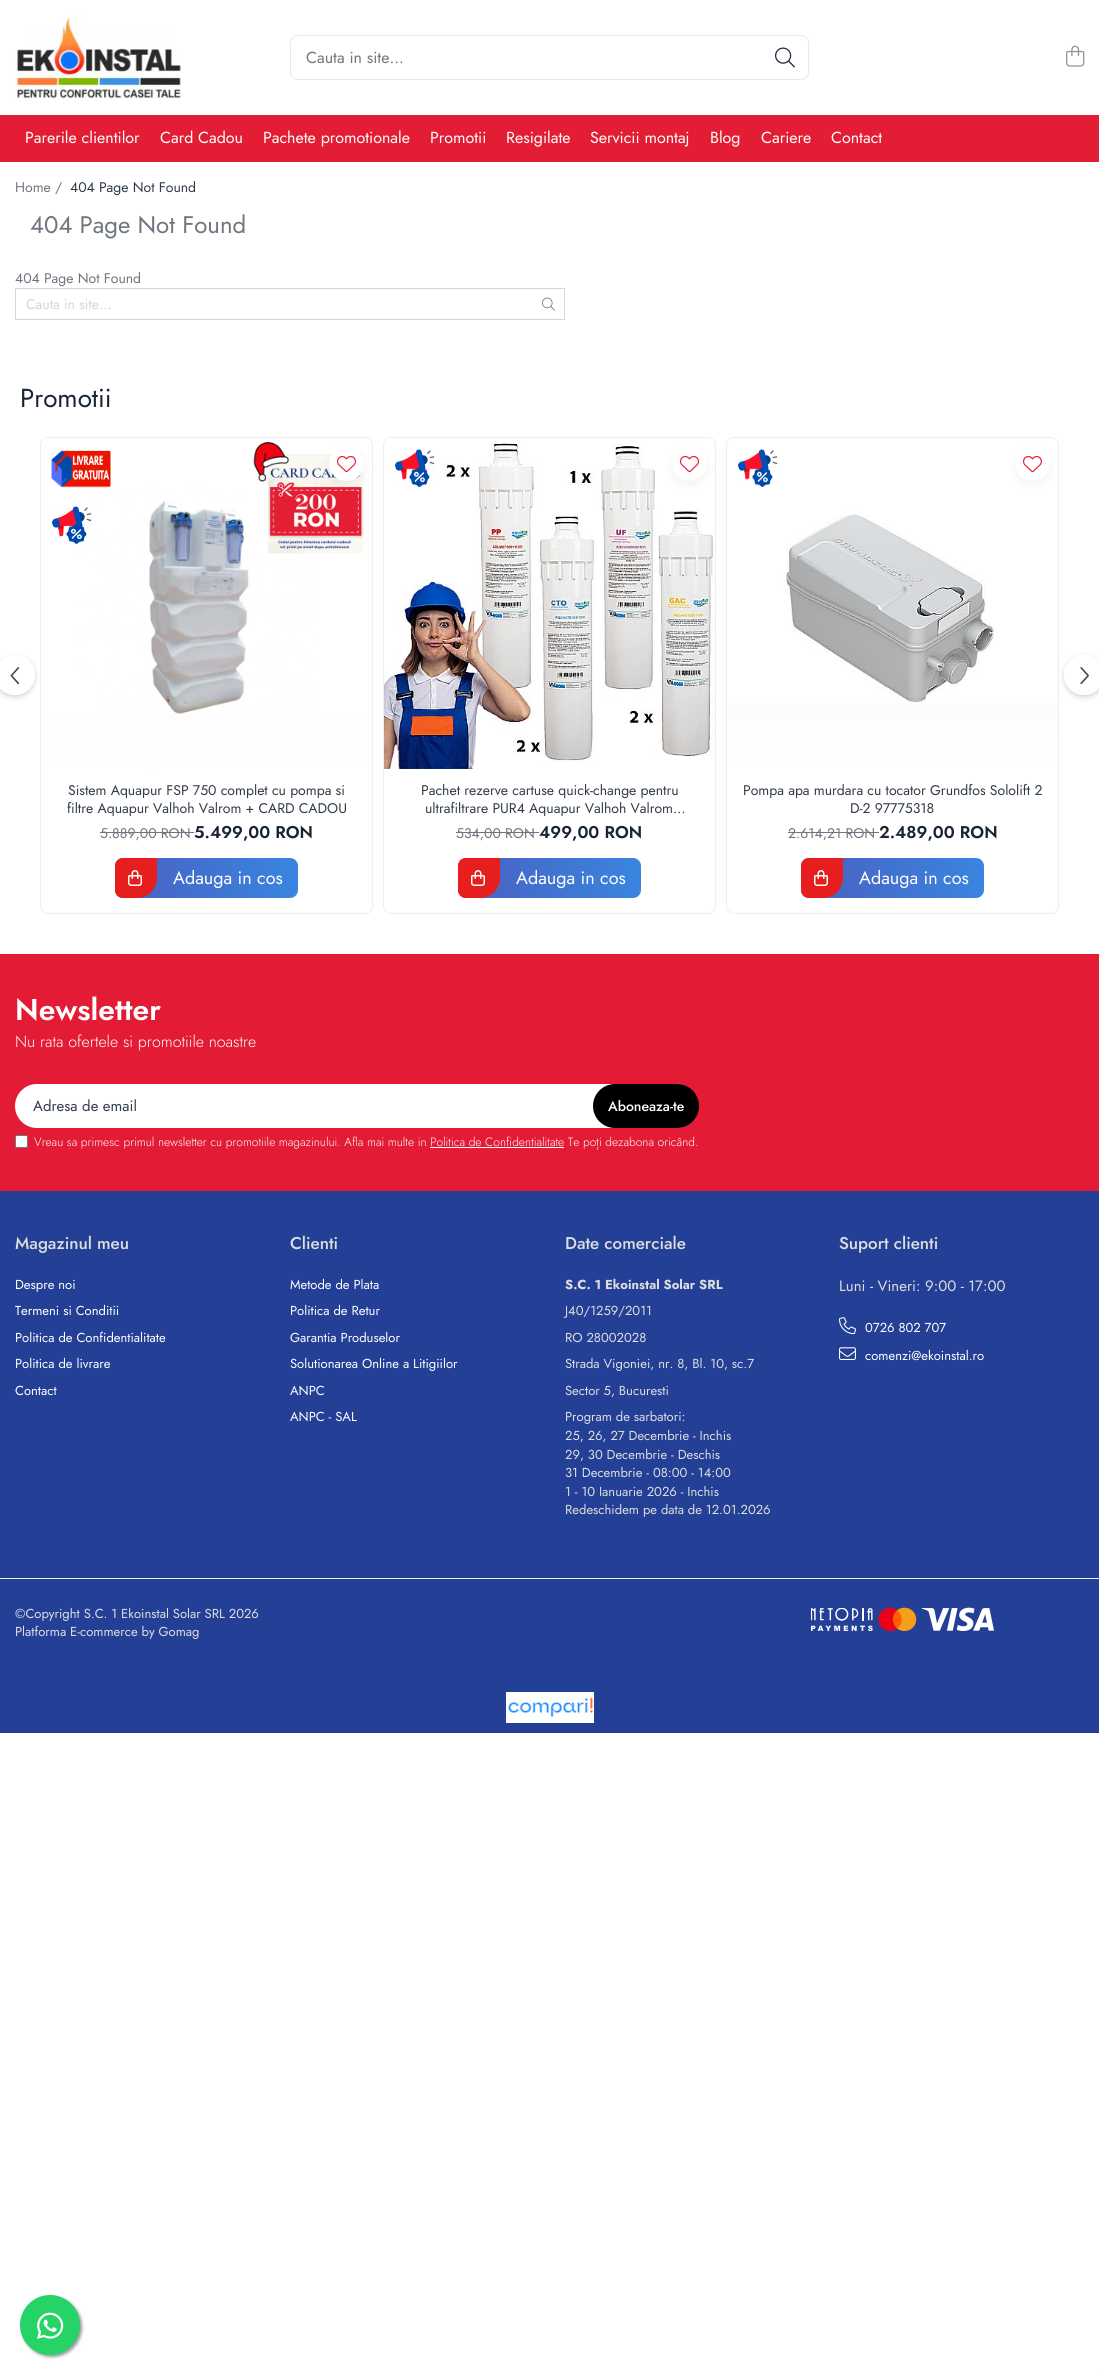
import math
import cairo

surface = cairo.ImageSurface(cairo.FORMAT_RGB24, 1099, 2375)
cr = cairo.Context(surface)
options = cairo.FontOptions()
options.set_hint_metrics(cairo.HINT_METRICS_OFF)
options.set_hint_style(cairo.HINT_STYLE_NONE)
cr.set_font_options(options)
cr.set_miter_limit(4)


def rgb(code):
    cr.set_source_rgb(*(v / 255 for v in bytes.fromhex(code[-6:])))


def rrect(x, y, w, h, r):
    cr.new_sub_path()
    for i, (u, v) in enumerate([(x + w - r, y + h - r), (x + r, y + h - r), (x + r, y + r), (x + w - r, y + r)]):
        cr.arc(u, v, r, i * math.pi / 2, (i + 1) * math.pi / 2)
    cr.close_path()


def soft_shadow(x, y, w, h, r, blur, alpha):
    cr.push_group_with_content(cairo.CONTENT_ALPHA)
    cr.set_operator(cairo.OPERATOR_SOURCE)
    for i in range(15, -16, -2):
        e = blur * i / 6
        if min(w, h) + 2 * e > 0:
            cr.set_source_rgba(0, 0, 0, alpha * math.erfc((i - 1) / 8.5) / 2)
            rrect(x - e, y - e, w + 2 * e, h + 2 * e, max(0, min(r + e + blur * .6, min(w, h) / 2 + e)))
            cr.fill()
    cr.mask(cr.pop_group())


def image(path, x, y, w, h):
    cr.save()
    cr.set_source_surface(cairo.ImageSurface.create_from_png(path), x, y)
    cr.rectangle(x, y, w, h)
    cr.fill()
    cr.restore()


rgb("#ffffff")
cr.paint()
image("img/1.png", 15, 15, 166, 85)
rrect(290.5, 35.5, 518, 44, 7.5)
rgb("#e8e9eb")
cr.set_line_width(1)
cr.stroke()
image("img/2.png", 775, 47, 20, 21)
image("img/3.png", 1066, 45, 19, 22)
rgb("#e31e34")
cr.rectangle(0, 115, 1099, 47)
cr.fill()
cr.rectangle(15.5, 288.5, 549, 31)
rgb("#d5d5d5")
cr.stroke()
image("img/4.png", 542, 297, 13, 14)
rrect(40.5, 437.5, 332, 476, 7.5)
rgb("#eeeeee")
cr.stroke()
gradient = cairo.LinearGradient(206, 438, 207, 769)
gradient.add_color_stop_rgba(0, 0.949, 0.949, 0.949, 1)
gradient.add_color_stop_rgba(1, 0.949, 0.949, 0.949, 0)
cr.set_source(gradient)
cr.new_path()
cr.move_to(48, 438)
cr.line_to(365, 438)
cr.curve_to(369, 438, 372, 441, 372, 445)
cr.line_to(372, 769)
cr.line_to(41, 769)
cr.line_to(41, 445)
cr.curve_to(41, 441, 44, 438, 48, 438)
cr.close_path()
cr.fill()
image("img/7.png", 41, 438, 331, 276)
cr.save()
cr.set_fill_rule(cairo.FILL_RULE_EVEN_ODD)
cr.new_path()
cr.move_to(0, 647)
cr.line_to(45, 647)
cr.line_to(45, 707)
cr.line_to(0, 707)
cr.close_path()
cr.move_to(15, 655)
cr.curve_to(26, 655, 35, 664, 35, 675)
cr.curve_to(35, 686, 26, 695, 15, 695)
cr.curve_to(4, 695, -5, 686, -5, 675)
cr.curve_to(-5, 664, 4, 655, 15, 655)
cr.close_path()
cr.clip()
rgb("#000000")
soft_shadow(-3, 659, 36, 36, 18, 3.5, 0.3)
cr.restore()
cr.set_source_rgba(1, 1, 1, 0.85)
cr.arc(15, 675, 20, 0, 2 * math.pi)
cr.fill()
image("img/5.png", 10, 667, 10, 18)
rrect(726.5, 437.5, 332, 476, 7.5)
rgb("#eeeeee")
cr.stroke()
gradient = cairo.LinearGradient(893, 438, 893, 769)
gradient.add_color_stop_rgba(0, 0.949, 0.949, 0.949, 1)
gradient.add_color_stop_rgba(1, 0.949, 0.949, 0.949, 0)
cr.set_source(gradient)
cr.new_path()
cr.move_to(734, 438)
cr.line_to(1051, 438)
cr.curve_to(1055, 438, 1058, 441, 1058, 445)
cr.line_to(1058, 769)
cr.line_to(727, 769)
cr.line_to(727, 445)
cr.curve_to(727, 441, 730, 438, 734, 438)
cr.close_path()
cr.fill()
image("img/14.png", 727, 438, 331, 264)
cr.save()
cr.set_fill_rule(cairo.FILL_RULE_EVEN_ODD)
cr.new_path()
cr.move_to(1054, 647)
cr.line_to(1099, 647)
cr.line_to(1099, 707)
cr.line_to(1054, 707)
cr.close_path()
cr.move_to(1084, 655)
cr.curve_to(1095, 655, 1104, 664, 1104, 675)
cr.curve_to(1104, 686, 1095, 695, 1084, 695)
cr.curve_to(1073, 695, 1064, 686, 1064, 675)
cr.curve_to(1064, 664, 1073, 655, 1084, 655)
cr.close_path()
cr.clip()
rgb("#000000")
soft_shadow(1066, 659, 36, 36, 18, 3.5, 0.3)
cr.restore()
cr.set_source_rgba(1, 1, 1, 0.85)
cr.arc(1084, 675, 20, 0, 2 * math.pi)
cr.fill()
image("img/6.png", 1080, 667, 9, 18)
image("img/8.png", 51, 450, 60, 38)
image("img/9.png", 52, 506, 40, 38)
rgb("#6f767f")
cr.rectangle(100, 832, 94, 1)
cr.fill()
rgb("#000000")
soft_shadow(332, 453, 29, 29, 14.5, 6, 0.08)
rgb("#ffffff")
cr.arc(346.5, 463.5, 17.5, 0, 2 * math.pi)
cr.fill()
image("img/10.png", 337, 455, 19, 18)
gradient = cairo.LinearGradient(115, 878, 298, 878)
gradient.add_color_stop_rgba(0, 0.29, 0.376, 0.757, 1)
gradient.add_color_stop_rgba(1, 0.224, 0.522, 0.878, 1)
cr.set_source(gradient)
rrect(115, 858, 183, 40, 8)
cr.fill()
rgb("#e61e1e")
cr.new_path()
cr.move_to(123, 858)
cr.line_to(157, 858)
cr.line_to(157, 878)
cr.curve_to(157, 889, 148, 898, 137, 898)
cr.line_to(123, 898)
cr.curve_to(118.5, 898, 115, 894.5, 115, 890)
cr.line_to(115, 866)
cr.curve_to(115, 861.5, 118.5, 858, 123, 858)
cr.close_path()
cr.fill()
image("img/11.png", 128, 870, 14, 16)
rrect(383.5, 437.5, 332, 476, 7.5)
rgb("#eeeeee")
cr.stroke()
image("img/12.png", 384, 438, 331, 331)
image("img/13.png", 395, 449, 40, 39)
rgb("#6f767f")
cr.rectangle(456, 832, 83, 1)
cr.fill()
rgb("#000000")
soft_shadow(675, 453, 29, 29, 14.5, 6, 0.08)
rgb("#ffffff")
cr.arc(689.5, 463.5, 17.5, 0, 2 * math.pi)
cr.fill()
image("img/10.png", 680, 455, 19, 18)
gradient = cairo.LinearGradient(458, 878, 641, 878)
gradient.add_color_stop_rgba(0, 0.29, 0.376, 0.757, 1)
gradient.add_color_stop_rgba(1, 0.224, 0.522, 0.878, 1)
cr.set_source(gradient)
rrect(458, 858, 183, 40, 8)
cr.fill()
rgb("#e61e1e")
cr.new_path()
cr.move_to(466, 858)
cr.line_to(500, 858)
cr.line_to(500, 878)
cr.curve_to(500, 889, 491, 898, 480, 898)
cr.line_to(466, 898)
cr.curve_to(461.5, 898, 458, 894.5, 458, 890)
cr.line_to(458, 866)
cr.curve_to(458, 861.5, 461.5, 858, 466, 858)
cr.close_path()
cr.fill()
image("img/11.png", 471, 870, 14, 16)
image("img/15.png", 738, 449, 40, 39)
rgb("#6f767f")
cr.rectangle(788, 832, 91, 1)
cr.fill()
rgb("#000000")
soft_shadow(1018, 453, 29, 29, 14.5, 6, 0.08)
rgb("#ffffff")
cr.arc(1032.5, 463.5, 17.5, 0, 2 * math.pi)
cr.fill()
image("img/10.png", 1023, 455, 19, 18)
gradient = cairo.LinearGradient(801, 878, 984, 878)
gradient.add_color_stop_rgba(0, 0.29, 0.376, 0.757, 1)
gradient.add_color_stop_rgba(1, 0.224, 0.522, 0.878, 1)
cr.set_source(gradient)
rrect(801, 858, 183, 40, 8)
cr.fill()
rgb("#e61e1e")
cr.new_path()
cr.move_to(809, 858)
cr.line_to(843, 858)
cr.line_to(843, 878)
cr.curve_to(843, 889, 834, 898, 823, 898)
cr.line_to(809, 898)
cr.curve_to(804.5, 898, 801, 894.5, 801, 890)
cr.line_to(801, 866)
cr.curve_to(801, 861.5, 804.5, 858, 809, 858)
cr.close_path()
cr.fill()
image("img/11.png", 814, 870, 14, 16)
rgb("#e41b34")
cr.rectangle(0, 954, 1099, 237)
cr.fill()
rgb("#ffffff")
rrect(15, 1084, 683, 44, 22)
cr.fill()
rgb("#000000")
rrect(593, 1084, 106, 44, 22)
cr.fill()
rgb("#ffffff")
rrect(15.5, 1135.5, 12, 12, 1.5)
cr.fill_preserve()
rgb("#767676")
cr.stroke()
rgb("#ffffff")
cr.rectangle(430, 1147, 134, 1)
cr.fill()
rgb("#234096")
cr.rectangle(0, 1191, 1099, 542)
cr.fill()
image("img/16.png", 839, 1317, 17, 18)
image("img/17.png", 839, 1347, 17, 13)
rgb("#eeeeee")
cr.rectangle(0, 1578, 1099, 1)
cr.fill()
image("img/18.png", 811, 1607, 183, 24)
image("img/19.png", 506, 1692, 88, 31)
rgb("#999999")
soft_shadow(22, 2297, 60, 60, 30, 1.5, 1)
rgb("#25d366")
cr.arc(50, 2325, 30, 0, 2 * math.pi)
cr.fill()
image("img/20.png", 37, 2312, 27, 27)
rgb("#f5f5f5")
cr.rectangle(1097, 2373, 2, 2)
cr.fill()
cr.select_font_face("Jost")
cr.set_font_size(16)
rgb("#757575")
cr.move_to(306, 63)
cr.show_text("Cauta in site...")
rgb("#ffffff")
for x, y, s in [
    (25, 143, "Parerile clientilor"),
    (160, 143, "Card Cadou"),
    (263, 143, "Pachete promotionale"),
    (430, 143, "Promotii"),
    (506, 143, "Resigilate"),
    (590, 143, "Servicii montaj"),
    (710, 143, "Blog"),
    (761, 143, "Cariere"),
    (831, 143, "Contact"),
]:
    cr.move_to(x, y)
    cr.show_text(s)
cr.set_font_size(14)
rgb("#6f767f")
cr.move_to(15, 192)
cr.show_text("Home /")
rgb("#323c49")
cr.move_to(70, 192)
cr.show_text("404 Page Not Found")
cr.set_font_size(24)
rgb("#6f767f")
cr.move_to(30, 233)
cr.show_text("404 Page Not Found")
cr.set_font_size(14)
cr.move_to(15, 283)
cr.show_text("404 Page Not Found")
rgb("#d5d5d5")
cr.move_to(26, 309)
cr.show_text("Cauta in site...")
cr.set_font_size(26)
rgb("#1a2534")
cr.move_to(20, 407)
cr.show_text("Promotii")
cr.set_font_size(14)
rgb("#323c49")
cr.move_to(68, 795)
cr.show_text("Sistem Aquapur FSP 750 complet cu pompa si")
cr.move_to(67, 813)
cr.show_text("filtre Aquapur Valhoh Valrom + CARD CADOU")
rgb("#6f767f")
cr.move_to(100, 838)
cr.show_text("5.889,00 RON")
cr.select_font_face("Jost SemiBold")
cr.set_font_size(17)
rgb("#1a2534")
cr.move_to(194, 838)
cr.show_text("5.499,00 RON")
cr.select_font_face("Jost")
cr.set_font_size(18)
rgb("#ffffff")
cr.move_to(173, 884)
cr.show_text("Adauga in cos")
cr.set_font_size(14)
rgb("#323c49")
cr.move_to(421, 795)
cr.show_text("Pachet rezerve cartuse quick-change pentru")
cr.move_to(425, 813)
cr.show_text("ultrafiltrare PUR4 Aquapur Valhoh Valrom…")
rgb("#6f767f")
cr.move_to(456, 838)
cr.show_text("534,00 RON")
cr.select_font_face("Jost SemiBold")
cr.set_font_size(17)
rgb("#1a2534")
cr.move_to(539, 838)
cr.show_text("499,00 RON")
cr.select_font_face("Jost")
cr.set_font_size(18)
rgb("#ffffff")
cr.move_to(516, 884)
cr.show_text("Adauga in cos")
cr.set_font_size(14)
rgb("#323c49")
cr.move_to(743, 795)
cr.show_text("Pompa apa murdara cu tocator Grundfos Sololift 2")
cr.move_to(850, 813)
cr.show_text("D-2 97775318")
rgb("#6f767f")
cr.move_to(788, 838)
cr.show_text("2.614,21 RON")
cr.select_font_face("Jost SemiBold")
cr.set_font_size(17)
rgb("#1a2534")
cr.move_to(879, 838)
cr.show_text("2.489,00 RON")
cr.select_font_face("Jost")
cr.set_font_size(18)
rgb("#ffffff")
cr.move_to(859, 884)
cr.show_text("Adauga in cos")
cr.select_font_face("Jost SemiBold")
cr.set_font_size(30)
cr.move_to(15, 1020)
cr.show_text("Newsletter")
cr.select_font_face("Jost Light")
cr.set_font_size(16)
cr.move_to(15, 1047)
cr.show_text("Nu rata ofertele si promotiile noastre")
cr.select_font_face("Jost")
cr.set_font_size(15)
rgb("#323c49")
cr.move_to(33, 1111)
cr.show_text("Adresa de email")
cr.select_font_face("Jost Medium")
cr.set_font_size(14)
rgb("#ffffff")
cr.move_to(608, 1111)
cr.show_text("Aboneaza-te")
cr.select_font_face("Jost Light")
cr.set_font_size(12)
cr.move_to(34, 1146)
cr.show_text("Vreau sa primesc primul newsletter cu promotiile magazinului. Afla mai multe in Politica de Confidentialitate Te poți dezabona oricând.")
cr.select_font_face("Jost Medium")
cr.set_font_size(17)
rgb("#dedede")
cr.move_to(15, 1249)
cr.show_text("Magazinul meu")
cr.select_font_face("Jost")
cr.set_font_size(13)
rgb("#ffffff")
for x, y, s in [
    (15, 1289, "Despre noi"),
    (15, 1315, "Termeni si Conditii"),
    (15, 1342, "Politica de Confidentialitate"),
    (15, 1368, "Politica de livrare"),
    (15, 1395, "Contact"),
]:
    cr.move_to(x, y)
    cr.show_text(s)
cr.select_font_face("Jost Medium")
cr.set_font_size(17)
rgb("#dedede")
cr.move_to(290, 1249)
cr.show_text("Clienti")
cr.select_font_face("Jost")
cr.set_font_size(13)
rgb("#ffffff")
for x, y, s in [
    (290, 1289, "Metode de Plata"),
    (290, 1315, "Politica de Retur"),
    (290, 1342, "Garantia Produselor"),
    (290, 1368, "Solutionarea Online a Litigiilor"),
    (290, 1395, "ANPC"),
    (290, 1421, "ANPC - SAL"),
]:
    cr.move_to(x, y)
    cr.show_text(s)
cr.select_font_face("Jost Medium")
cr.set_font_size(17)
rgb("#dedede")
cr.move_to(565, 1249)
cr.show_text("Date comerciale")
cr.select_font_face("Jost", cairo.FONT_SLANT_NORMAL, cairo.FONT_WEIGHT_BOLD)
cr.set_font_size(13)
cr.move_to(565, 1289)
cr.show_text("S.C. 1 Ekoinstal Solar SRL")
cr.select_font_face("Jost")
for x, y, s in [
    (565, 1315, "J40/1259/2011"),
    (565, 1342, "RO 28002028"),
    (565, 1368, "Strada Vigoniei, nr. 8, Bl. 10, sc.7"),
    (565, 1395, "Sector 5, Bucuresti"),
    (565, 1421, "Program de sarbatori:"),
    (565, 1440, "25, 26, 27 Decembrie - Inchis"),
    (565, 1459, "29, 30 Decembrie - Deschis"),
    (565, 1477, "31 Decembrie - 08:00 - 14:00"),
    (565, 1496, "1 - 10 Ianuarie 2026 - Inchis"),
    (565, 1514, "Redeschidem pe data de 12.01.2026"),
]:
    cr.move_to(x, y)
    cr.show_text(s)
cr.select_font_face("Jost Medium")
cr.set_font_size(17)
cr.move_to(839, 1249)
cr.show_text("Suport clienti")
cr.select_font_face("Jost")
cr.set_font_size(15)
cr.move_to(839, 1291)
cr.show_text("Luni - Vineri: 9:00 - 17:00")
cr.set_font_size(13)
rgb("#ffffff")
cr.move_to(865, 1332)
cr.show_text("0726 802 707")
cr.move_to(865, 1360)
cr.show_text("comenzi@ekoinstal.ro")
rgb("#dedede")
cr.move_to(15, 1618)
cr.show_text("©Copyright S.C. 1 Ekoinstal Solar SRL 2026")
cr.move_to(15, 1636)
cr.show_text("Platforma E-commerce by Gomag")
surface.write_to_png("page.png")
